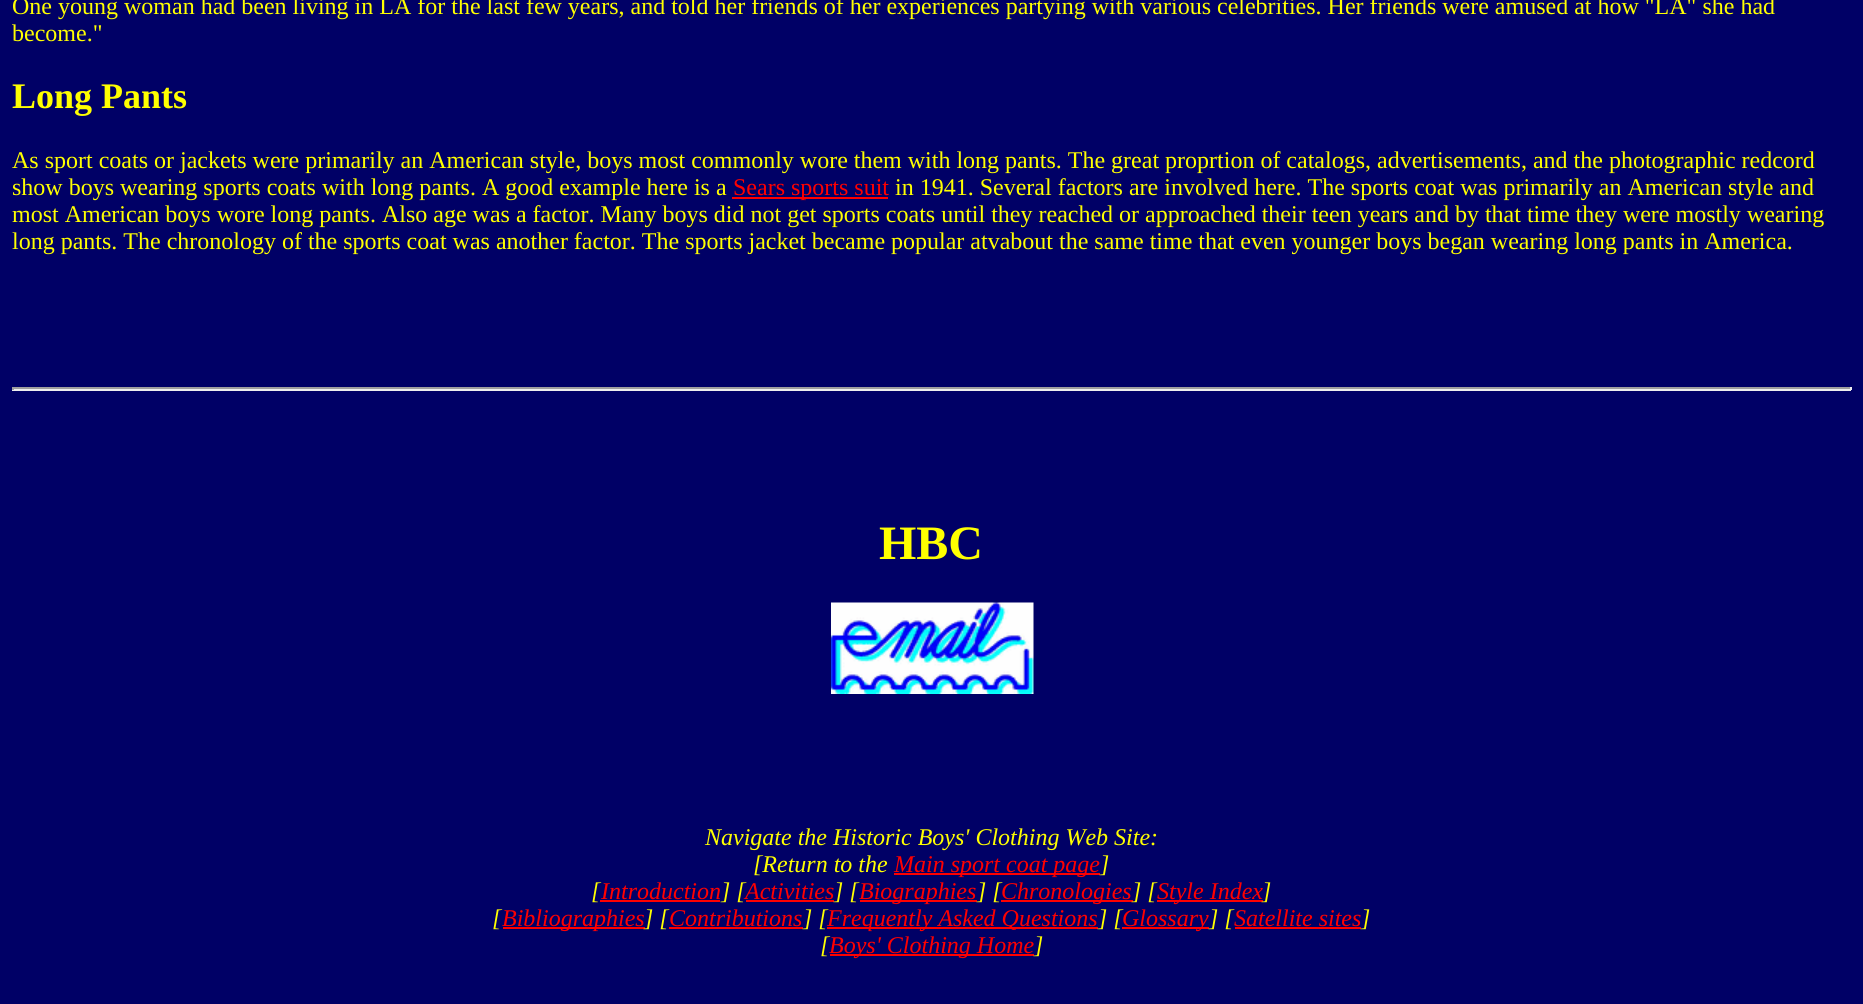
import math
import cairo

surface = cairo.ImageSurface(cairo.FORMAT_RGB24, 1863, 1004)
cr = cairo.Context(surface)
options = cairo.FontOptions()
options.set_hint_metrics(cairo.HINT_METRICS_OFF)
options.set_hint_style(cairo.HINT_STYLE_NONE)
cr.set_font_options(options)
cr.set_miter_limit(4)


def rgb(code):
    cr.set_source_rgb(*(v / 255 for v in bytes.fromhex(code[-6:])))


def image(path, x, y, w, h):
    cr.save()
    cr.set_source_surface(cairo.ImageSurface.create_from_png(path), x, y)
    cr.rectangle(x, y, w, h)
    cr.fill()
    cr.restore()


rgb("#000066")
cr.paint()
for x, y, w, h, color in [
    (732, 197, 156, 2, "#ff0000"),
    (12, 387, 1839, 2, "#9f9f9f"),
    (1850, 387, 2, 3, "#eeeeee"),
    (12, 389, 1839, 2, "#eeeeee"),
    (12, 387, 2, 3, "#9f9f9f"),
]:
    rgb(color)
    cr.rectangle(x, y, w, h)
    cr.fill()
image("img/1.png", 831, 602, 203, 92)
for x, y, w, h, color in [
    (894, 873, 206, 2, "#ff0000"),
    (503, 927, 142, 2, "#ff0000"),
    (1235, 927, 126, 2, "#ff0000"),
    (830, 954, 204, 2, "#ff0000"),
]:
    rgb(color)
    cr.rectangle(x, y, w, h)
    cr.fill()
cr.select_font_face("Liberation Serif")
cr.set_font_size(24)
rgb("#ffff00")
cr.move_to(12, 14)
cr.show_text("One young woman had been living in LA for the last few years, and told her friends of her experiences partying with various celebrities. Her friends were amused at how \"LA\" she had")
cr.move_to(12, 41)
cr.show_text("become.\"")
cr.select_font_face("Liberation Serif", cairo.FONT_SLANT_NORMAL, cairo.FONT_WEIGHT_BOLD)
cr.set_font_size(36)
cr.move_to(12, 108)
cr.show_text("Long Pants")
cr.select_font_face("Liberation Serif")
cr.set_font_size(24)
cr.move_to(12, 168)
cr.show_text("As sport coats or jackets were primarily an American style, boys most commonly wore them with long pants. The great proprtion of catalogs, advertisements, and the photographic redcord")
cr.move_to(12, 195)
cr.show_text("show boys wearing sports coats with long pants. A good example here is a")
rgb("#ff0000")
cr.move_to(733, 195)
cr.show_text("Sears sports suit")
rgb("#ffff00")
for x, y, s in [
    (895, 195, "in 1941. Several factors are involved here. The sports coat was primarily an American style and"),
    (12, 222, "most American boys wore long pants. Also age was a factor. Many boys did not get sports coats until they reached or approached their teen years and by that time they were mostly wearing"),
    (12, 249, "long pants. The chronology of the sports coat was another factor. The sports jacket became popular atvabout the same time that even younger boys began wearing long pants in America."),
]:
    cr.move_to(x, y)
    cr.show_text(s)
cr.select_font_face("Liberation Serif", cairo.FONT_SLANT_NORMAL, cairo.FONT_WEIGHT_BOLD)
cr.set_font_size(48)
cr.move_to(879, 559)
cr.show_text("HBC")
cr.select_font_face("Liberation Serif", cairo.FONT_SLANT_ITALIC)
cr.set_font_size(24)
cr.move_to(705, 845)
cr.show_text("Navigate the Historic Boys' Clothing Web Site:")
cr.move_to(753, 872)
cr.show_text("[Return to the")
rgb("#ff0000")
cr.move_to(894, 872)
cr.show_text("Main sport coat page")
rgb("#ffff00")
cr.move_to(1100, 872)
cr.show_text("]")
cr.move_to(591, 899)
cr.show_text("[")
rgb("#ff0000")
cr.rectangle(600, 900, 120, 2)
cr.fill()
cr.move_to(601, 899)
cr.show_text("Introduction")
rgb("#ffff00")
cr.move_to(721, 899)
cr.show_text("] [")
rgb("#ff0000")
cr.rectangle(746, 900, 88, 2)
cr.fill()
cr.move_to(745, 899)
cr.show_text("Activities")
rgb("#ffff00")
cr.move_to(834, 899)
cr.show_text("] [")
rgb("#ff0000")
cr.rectangle(860, 900, 117, 2)
cr.fill()
cr.move_to(859, 899)
cr.show_text("Biographies")
rgb("#ffff00")
cr.move_to(977, 899)
cr.show_text("] [")
rgb("#ff0000")
cr.rectangle(1001, 900, 132, 2)
cr.fill()
cr.move_to(1001, 899)
cr.show_text("Chronologies")
rgb("#ffff00")
cr.move_to(1132, 899)
cr.show_text("] [")
rgb("#ff0000")
cr.rectangle(1157, 900, 106, 2)
cr.fill()
cr.move_to(1157, 899)
cr.show_text("Style Index")
rgb("#ffff00")
cr.move_to(1262, 899)
cr.show_text("]")
cr.move_to(492, 926)
cr.show_text("[")
rgb("#ff0000")
cr.move_to(502, 926)
cr.show_text("Bibliographies")
rgb("#ffff00")
cr.move_to(644, 926)
cr.show_text("] [")
rgb("#ff0000")
cr.rectangle(669, 927, 134, 2)
cr.fill()
cr.move_to(669, 926)
cr.show_text("Contributions")
rgb("#ffff00")
cr.move_to(803, 926)
cr.show_text("] [")
rgb("#ff0000")
cr.rectangle(827, 927, 271, 2)
cr.fill()
cr.move_to(827, 926)
cr.show_text("Frequently Asked Questions")
rgb("#ffff00")
cr.move_to(1098, 926)
cr.show_text("] [")
rgb("#ff0000")
cr.rectangle(1122, 927, 87, 2)
cr.fill()
cr.move_to(1122, 926)
cr.show_text("Glossary")
rgb("#ffff00")
cr.move_to(1209, 926)
cr.show_text("] [")
rgb("#ff0000")
cr.move_to(1234, 926)
cr.show_text("Satellite sites")
rgb("#ffff00")
cr.move_to(1361, 926)
cr.show_text("]")
cr.move_to(820, 953)
cr.show_text("[")
rgb("#ff0000")
cr.move_to(829, 953)
cr.show_text("Boys' Clothing Home")
rgb("#ffff00")
cr.move_to(1034, 953)
cr.show_text("]")
surface.write_to_png("page.png")
